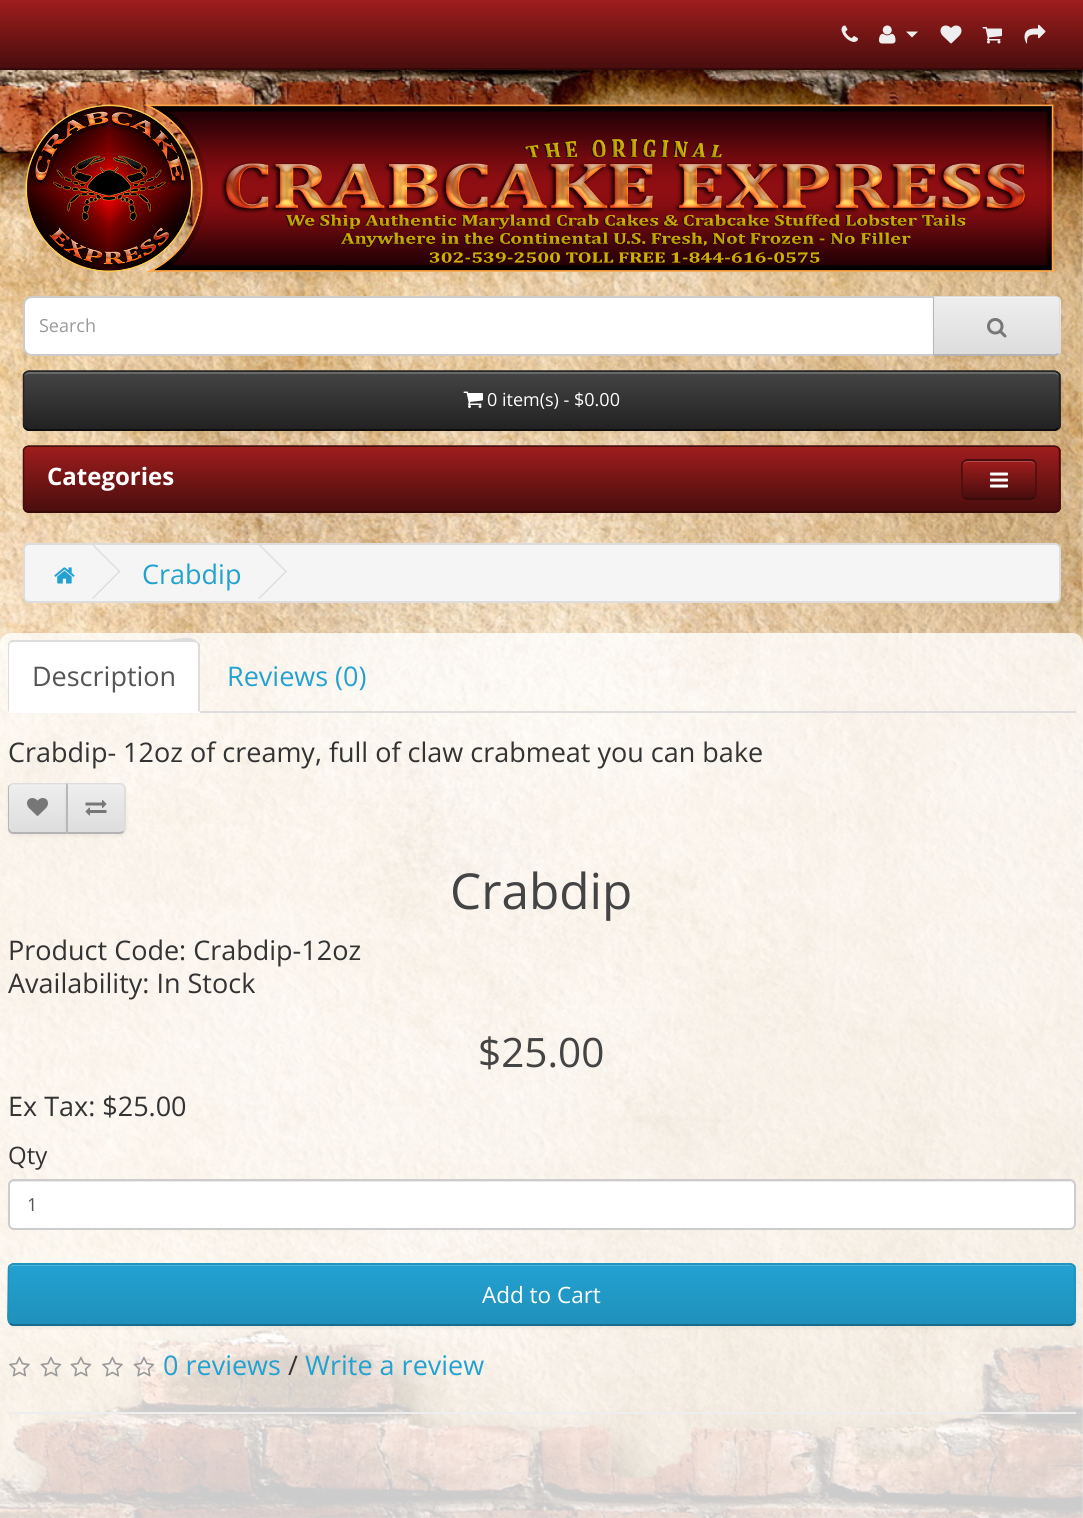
import math
import cairo

surface = cairo.ImageSurface(cairo.FORMAT_RGB24, 1083, 1518)
cr = cairo.Context(surface)
options = cairo.FontOptions()
options.set_hint_metrics(cairo.HINT_METRICS_OFF)
options.set_hint_style(cairo.HINT_STYLE_NONE)
cr.set_font_options(options)
cr.set_miter_limit(4)


def rgb(code):
    cr.set_source_rgb(*(v / 255 for v in bytes.fromhex(code[-6:])))


def rrect(x, y, w, h, r):
    cr.new_sub_path()
    for i, (u, v) in enumerate([(x + w - r, y + h - r), (x + r, y + h - r), (x + r, y + r), (x + w - r, y + r)]):
        cr.arc(u, v, r, i * math.pi / 2, (i + 1) * math.pi / 2)
    cr.close_path()


def soft_shadow(x, y, w, h, r, blur, alpha):
    cr.push_group_with_content(cairo.CONTENT_ALPHA)
    cr.set_operator(cairo.OPERATOR_SOURCE)
    for i in range(15, -16, -2):
        e = blur * i / 6
        if min(w, h) + 2 * e > 0:
            cr.set_source_rgba(0, 0, 0, alpha * math.erfc((i - 1) / 8.5) / 2)
            rrect(x - e, y - e, w + 2 * e, h + 2 * e, max(0, min(r + e + blur * .6, min(w, h) / 2 + e)))
            cr.fill()
    cr.mask(cr.pop_group())


def image(path, x, y, w, h):
    cr.save()
    cr.set_source_surface(cairo.ImageSurface.create_from_png(path), x, y)
    cr.rectangle(x, y, w, h)
    cr.fill()
    cr.restore()


rgb("#ffffff")
cr.paint()
image("img/1.png", 0, 70, 1083, 1448)
gradient = cairo.LinearGradient(542, 0, 542, 68)
gradient.add_color_stop_rgba(0, 0.624, 0.114, 0.114, 1)
gradient.add_color_stop_rgba(1, 0.286, 0.051, 0.051, 1)
cr.set_source(gradient)
cr.rectangle(0, 0, 1083, 68)
cr.fill()
rgb("#340909")
cr.rectangle(0, 68, 1083, 2)
cr.fill()
image("img/2.png", 841, 25, 17, 17)
image("img/3.png", 879, 25, 17, 19)
rgb("#eeeeee")
cr.new_path()
cr.move_to(906, 31.5)
cr.line_to(918, 31.5)
cr.line_to(912, 37.5)
cr.close_path()
cr.fill()
image("img/4.png", 940, 25, 22, 19)
image("img/5.png", 982, 27, 20, 17)
image("img/6.png", 1024, 24, 22, 20)
image("img/7.png", 25, 104, 1029, 168)
rgb("#ffffff")
cr.new_path()
cr.move_to(32, 297)
cr.line_to(934, 297)
cr.line_to(934, 355)
cr.line_to(32, 355)
cr.curve_to(27.5, 355, 24, 351.5, 24, 347)
cr.line_to(24, 305)
cr.curve_to(24, 300.5, 27.5, 297, 32, 297)
cr.close_path()
cr.fill_preserve()
rgb("#cccccc")
cr.stroke()
rgb("#000000")
soft_shadow(933, 297, 128, 60, 6, 1.5, 0.05)
rgb("#e7e7e7")
cr.new_path()
cr.move_to(933, 296)
cr.line_to(1055, 296)
cr.curve_to(1058.5, 296, 1061, 298.5, 1061, 302)
cr.line_to(1061, 350)
cr.curve_to(1061, 353.5, 1058.5, 356, 1055, 356)
cr.line_to(933, 356)
cr.close_path()
cr.fill()
cr.save()
cr.new_path()
cr.move_to(933, 296)
cr.line_to(1055, 296)
cr.curve_to(1058.5, 296, 1061, 298.5, 1061, 302)
cr.line_to(1061, 350)
cr.curve_to(1061, 353.5, 1058.5, 356, 1055, 356)
cr.line_to(933, 356)
cr.close_path()
cr.clip()
gradient = cairo.LinearGradient(997, 297, 997, 354)
gradient.add_color_stop_rgba(0, 0.933, 0.933, 0.933, 1)
gradient.add_color_stop_rgba(1, 0.867, 0.867, 0.867, 1)
cr.set_source(gradient)
cr.rectangle(934, 297, 127, 57)
cr.fill()
cr.restore()
rgb("#f1f1f1")
cr.new_path()
cr.move_to(935, 297)
cr.line_to(935, 298)
cr.line_to(1054, 298)
cr.curve_to(1057, 298, 1059, 301, 1059, 303)
cr.curve_to(1059, 300, 1057, 297, 1054, 297)
cr.close_path()
cr.fill()
rgb("#dddddd")
cr.new_path()
cr.move_to(1058, 298)
cr.line_to(1055, 296)
cr.line_to(934, 296)
cr.line_to(934, 297)
cr.line_to(1055, 297)
cr.close_path()
cr.fill()
cr.new_path()
cr.move_to(1058, 298)
cr.curve_to(1060, 298, 1060, 300, 1060, 302)
cr.line_to(1060, 350)
cr.curve_to(1060, 351, 1060, 353, 1059, 354)
cr.line_to(1058, 353)
cr.line_to(1059, 350)
cr.line_to(1059, 310)
cr.curve_to(1059, 308, 1060, 301, 1058, 298)
cr.close_path()
cr.fill()
rgb("#b3b3b3")
cr.new_path()
cr.move_to(1057, 356)
cr.line_to(933, 356)
cr.line_to(934, 354)
cr.line_to(1055, 354)
cr.line_to(1058, 353)
cr.line_to(1059, 354)
cr.close_path()
cr.fill()
rgb("#b7b7b7")
cr.new_path()
cr.move_to(934, 297)
cr.line_to(933, 296)
cr.line_to(933, 356)
cr.line_to(934, 354)
cr.close_path()
cr.fill()
image("img/8.png", 987, 318, 20, 20)
rgb("#000000")
soft_shadow(23, 372, 1038, 60, 6, 1.5, 0.05)
rgb("#363636")
rrect(23, 371, 1038, 60, 6)
cr.fill()
cr.save()
rrect(23, 371, 1038, 60, 6)
cr.clip()
gradient = cairo.LinearGradient(542, 372, 542, 429)
gradient.add_color_stop_rgba(0, 0.267, 0.267, 0.267, 1)
gradient.add_color_stop_rgba(1, 0.133, 0.133, 0.133, 1)
cr.set_source(gradient)
cr.rectangle(23, 372, 1038, 57)
cr.fill()
cr.restore()
rgb("#696969")
cr.new_path()
cr.move_to(28, 374)
cr.line_to(1054, 374)
cr.curve_to(1057, 374, 1059, 376, 1059, 378)
cr.curve_to(1059, 375, 1057, 372, 1054, 372)
cr.line_to(29, 372)
cr.curve_to(26, 372, 24, 375, 24, 378)
cr.curve_to(24, 376, 26, 374, 28, 374)
cr.close_path()
cr.fill()
cr.new_path()
cr.move_to(1058, 428)
cr.curve_to(1057, 429, 1056, 430, 1054.5, 430)
cr.line_to(28.5, 430)
cr.curve_to(27, 430, 26, 429, 25, 428)
rgb("#000000")
cr.set_line_width(1.5)
cr.stroke()
cr.new_path()
cr.move_to(25, 428)
cr.line_to(23.5, 425.5)
cr.line_to(23.5, 374.5)
cr.curve_to(24.5, 372.5, 26.5, 371.5, 28.5, 371)
cr.line_to(1054.5, 371)
cr.curve_to(1056.5, 371.5, 1058.5, 372.5, 1059.5, 374.5)
cr.line_to(1059.5, 425.5)
cr.line_to(1058, 428)
rgb("#222222")
cr.stroke()
image("img/9.png", 463, 391, 20, 17)
rgb("#490d0d")
rrect(23, 446, 1038, 67, 6)
cr.fill()
cr.save()
rrect(23, 446, 1038, 67, 6)
cr.clip()
gradient = cairo.LinearGradient(542, 447, 542, 512)
gradient.add_color_stop_rgba(0, 0.624, 0.114, 0.114, 1)
gradient.add_color_stop_rgba(1, 0.286, 0.051, 0.051, 1)
cr.set_source(gradient)
cr.rectangle(23, 447, 1038, 65)
cr.fill()
cr.restore()
cr.new_path()
cr.move_to(1058, 510.5)
cr.curve_to(1057, 511.5, 1056, 512, 1054.5, 512)
cr.line_to(28.5, 512)
cr.curve_to(27, 512, 26, 511.5, 25, 510.5)
rgb("#340909")
cr.stroke()
cr.new_path()
cr.move_to(25, 510.5)
cr.line_to(23.5, 508)
cr.line_to(23.5, 450.5)
cr.curve_to(23.5, 449, 24.5, 448, 25.5, 447)
cr.line_to(28.5, 446)
cr.line_to(1054.5, 446)
cr.line_to(1057.5, 447)
cr.curve_to(1058.5, 448, 1059.5, 449, 1059.5, 450.5)
cr.line_to(1059.5, 508)
cr.line_to(1058, 510.5)
rgb("#490d0d")
cr.stroke()
rrect(962, 459, 75, 41, 6)
cr.fill()
cr.save()
rrect(962, 459, 75, 41, 6)
cr.clip()
gradient = cairo.LinearGradient(999, 461, 999, 498)
gradient.add_color_stop_rgba(0, 0.624, 0.114, 0.114, 1)
gradient.add_color_stop_rgba(1, 0.286, 0.051, 0.051, 1)
cr.set_source(gradient)
cr.rectangle(962, 461, 75, 37)
cr.fill()
cr.restore()
rgb("#b14a4a")
cr.new_path()
cr.move_to(968, 462)
cr.line_to(1030, 462)
cr.curve_to(1033, 462, 1035, 464, 1035, 466)
cr.curve_to(1035, 463, 1033, 461, 1030, 461)
cr.line_to(968, 461)
cr.curve_to(965, 461, 963, 463, 963, 466)
cr.curve_to(963, 464, 965, 462, 968, 462)
cr.close_path()
cr.fill()
cr.new_path()
cr.move_to(1034, 497)
cr.curve_to(1033, 498, 1032, 499, 1030.5, 499)
cr.line_to(967.5, 499)
cr.curve_to(966, 499, 965, 498, 964, 497)
rgb("#340909")
cr.stroke()
cr.new_path()
cr.move_to(964, 497)
cr.curve_to(961.5, 495, 962, 491.5, 962, 489)
cr.line_to(962, 479)
cr.curve_to(962, 459.5, 959, 460, 978, 460)
cr.line_to(1020, 460)
cr.curve_to(1039, 460, 1036, 459.5, 1036, 479)
cr.line_to(1036, 489)
cr.curve_to(1036, 491.5, 1036.5, 495, 1034, 497)
rgb("#490d0d")
cr.stroke()
image("img/10.png", 990, 472, 18, 16)
rgb("#f5f5f5")
rrect(24, 544, 1036, 58, 5)
cr.fill_preserve()
rgb("#dddddd")
cr.set_line_width(2)
cr.stroke()
image("img/11.png", 54, 567, 21, 17)
cr.new_path()
cr.move_to(92, 545)
cr.line_to(93, 544)
cr.line_to(120.5, 571.5)
cr.line_to(119.5, 572.5)
cr.close_path()
cr.fill()
cr.new_path()
cr.move_to(92, 598)
cr.line_to(119.5, 570.5)
cr.line_to(120.5, 571.5)
cr.line_to(93, 599)
cr.close_path()
cr.fill()
cr.new_path()
cr.move_to(258.5, 545)
cr.line_to(259.5, 544)
cr.line_to(287, 571.5)
cr.line_to(286, 572.5)
cr.close_path()
cr.fill()
cr.new_path()
cr.move_to(258.5, 598)
cr.line_to(286, 570.5)
cr.line_to(287, 571.5)
cr.line_to(259.5, 599)
cr.close_path()
cr.fill()
image("img/12.png", 0, 633, 1083, 885)
cr.rectangle(200, 711, 876, 2)
cr.fill()
rgb("#ffffff")
cr.new_path()
cr.move_to(14, 641)
cr.line_to(194, 641)
cr.curve_to(197.5, 641, 200, 643.5, 200, 647)
cr.line_to(200, 713)
cr.line_to(8, 713)
cr.line_to(8, 647)
cr.curve_to(8, 643.5, 10.5, 641, 14, 641)
cr.close_path()
cr.fill()
rgb("#dddddd")
cr.new_path()
cr.move_to(14, 642)
cr.curve_to(12, 642, 11, 643, 10, 643)
cr.line_to(9, 642)
cr.line_to(11, 640)
cr.line_to(165, 640)
cr.curve_to(176, 640, 190, 634, 198, 642)
cr.line_to(197, 643)
cr.line_to(194, 642)
cr.close_path()
cr.fill()
cr.new_path()
cr.move_to(200, 712)
cr.line_to(198, 711)
cr.line_to(198, 646)
cr.line_to(197, 643)
cr.line_to(198, 642)
cr.line_to(200, 644)
cr.close_path()
cr.fill()
cr.new_path()
cr.move_to(8, 712)
cr.line_to(9, 711)
cr.line_to(9, 646)
cr.line_to(10, 643)
cr.line_to(9, 642)
cr.curve_to(8, 643, 8, 645, 8, 646)
cr.close_path()
cr.fill()
rgb("#000000")
soft_shadow(8, 785, 60, 51, 6, 1.5, 0.05)
rgb("#e7e7e7")
cr.new_path()
cr.move_to(14, 783)
cr.line_to(68, 783)
cr.line_to(68, 834)
cr.line_to(14, 834)
cr.curve_to(10.5, 834, 8, 831.5, 8, 828)
cr.line_to(8, 789)
cr.curve_to(8, 785.5, 10.5, 783, 14, 783)
cr.close_path()
cr.fill()
cr.save()
cr.new_path()
cr.move_to(14, 783)
cr.line_to(68, 783)
cr.line_to(68, 834)
cr.line_to(14, 834)
cr.curve_to(10.5, 834, 8, 831.5, 8, 828)
cr.line_to(8, 789)
cr.curve_to(8, 785.5, 10.5, 783, 14, 783)
cr.close_path()
cr.clip()
gradient = cairo.LinearGradient(37, 785, 38, 833)
gradient.add_color_stop_rgba(0, 0.933, 0.933, 0.933, 1)
gradient.add_color_stop_rgba(1, 0.867, 0.867, 0.867, 1)
cr.set_source(gradient)
cr.rectangle(8, 785, 58, 48)
cr.fill()
cr.restore()
rgb("#f1f1f1")
cr.new_path()
cr.move_to(14, 786)
cr.line_to(66, 786)
cr.line_to(66, 785)
cr.line_to(14, 785)
cr.curve_to(11, 785, 9, 787, 9, 790)
cr.curve_to(9, 788, 11, 786, 14, 786)
cr.close_path()
cr.fill()
rgb("#dddddd")
cr.new_path()
cr.move_to(14, 783)
cr.curve_to(12, 783, 10, 784, 9, 785)
cr.line_to(10, 786)
cr.line_to(13, 784)
cr.line_to(66, 784)
cr.line_to(68, 783)
cr.close_path()
cr.fill()
rgb("#b3b3b3")
cr.new_path()
cr.move_to(68, 834)
cr.line_to(66, 832)
cr.line_to(14, 832)
cr.curve_to(13, 832, 11, 832, 11, 831)
cr.line_to(9, 832)
cr.curve_to(10, 833, 12, 834, 14, 834)
cr.close_path()
cr.fill()
rgb("#b7b7b7")
cr.new_path()
cr.move_to(9, 785)
cr.curve_to(8, 786, 8, 788, 8, 789)
cr.line_to(8, 828)
cr.curve_to(8, 829, 8, 831, 9, 832)
cr.line_to(11, 831)
cr.curve_to(10, 830, 9, 829, 9, 828)
cr.line_to(9, 789)
cr.curve_to(9, 788, 9, 787, 10, 786)
cr.close_path()
cr.fill()
image("img/13.png", 27, 798, 21, 18)
rgb("#000000")
soft_shadow(66, 785, 60, 51, 6, 1.5, 0.05)
rgb("#e7e7e7")
cr.new_path()
cr.move_to(66, 783)
cr.line_to(120, 783)
cr.curve_to(123.5, 783, 126, 785.5, 126, 789)
cr.line_to(126, 828)
cr.curve_to(126, 831.5, 123.5, 834, 120, 834)
cr.line_to(66, 834)
cr.close_path()
cr.fill()
cr.save()
cr.new_path()
cr.move_to(66, 783)
cr.line_to(120, 783)
cr.curve_to(123.5, 783, 126, 785.5, 126, 789)
cr.line_to(126, 828)
cr.curve_to(126, 831.5, 123.5, 834, 120, 834)
cr.line_to(66, 834)
cr.close_path()
cr.clip()
gradient = cairo.LinearGradient(96, 785, 96, 833)
gradient.add_color_stop_rgba(0, 0.933, 0.933, 0.933, 1)
gradient.add_color_stop_rgba(1, 0.867, 0.867, 0.867, 1)
cr.set_source(gradient)
cr.rectangle(67, 785, 59, 48)
cr.fill()
cr.restore()
cr.set_source_rgba(1, 1, 1, 0.2)
cr.new_path()
cr.move_to(68, 786)
cr.line_to(111, 786)
cr.curve_to(127, 786, 124, 786, 124, 803)
cr.line_to(124, 831)
cr.curve_to(125, 830, 125, 829, 125, 828)
cr.line_to(125, 790)
cr.curve_to(125, 787, 123, 785, 120, 785)
cr.line_to(68, 785)
cr.close_path()
cr.fill()
rgb("#dddddd")
cr.new_path()
cr.move_to(66, 783)
cr.line_to(68, 785)
cr.line_to(68, 784)
cr.line_to(120, 784)
cr.line_to(123, 786)
cr.line_to(124, 785)
cr.curve_to(123, 784, 122, 783, 120, 783)
cr.close_path()
cr.fill()
cr.new_path()
cr.move_to(126, 828)
cr.line_to(126, 789)
cr.curve_to(126, 788, 125, 786, 124, 785)
cr.line_to(123, 786)
cr.curve_to(125, 789, 124, 792, 124, 796)
cr.line_to(124, 828)
cr.line_to(123, 831)
cr.line_to(124, 832)
cr.curve_to(125, 831, 126, 830, 126, 828)
cr.close_path()
cr.fill()
rgb("#b3b3b3")
cr.new_path()
cr.move_to(120, 834)
cr.curve_to(122, 834, 123, 833, 124, 832)
cr.line_to(123, 831)
cr.line_to(120, 832)
cr.line_to(68, 832)
cr.line_to(66, 834)
cr.close_path()
cr.fill()
rgb("#b7b7b7")
cr.new_path()
cr.move_to(66, 783)
cr.line_to(66, 834)
cr.line_to(68, 832)
cr.line_to(68, 785)
cr.close_path()
cr.fill()
image("img/14.png", 85, 799, 22, 17)
rgb("#ffffff")
rrect(8, 1179, 1068, 51, 6)
cr.fill()
rgb("#ececec")
cr.new_path()
cr.move_to(14, 1182)
cr.line_to(1070, 1182)
cr.curve_to(1072, 1182, 1074, 1184, 1074, 1186)
cr.curve_to(1074, 1183, 1072, 1181, 1069, 1181)
cr.line_to(14, 1181)
cr.curve_to(11, 1181, 9, 1183, 9, 1186)
cr.curve_to(9, 1184, 11, 1182, 14, 1182)
cr.close_path()
cr.fill()
rrect(9, 1180, 1066, 49, 5)
rgb("#cccccc")
cr.stroke()
rgb("#000000")
soft_shadow(8, 1265, 1068, 63, 6, 1.5, 0.05)
rgb("#229ac8")
rrect(8, 1263, 1068, 63, 6)
cr.fill()
cr.save()
rrect(8, 1263, 1068, 63, 6)
cr.clip()
gradient = cairo.LinearGradient(542, 1265, 542, 1325)
gradient.add_color_stop_rgba(0, 0.137, 0.631, 0.82, 1)
gradient.add_color_stop_rgba(1, 0.122, 0.565, 0.733, 1)
cr.set_source(gradient)
cr.rectangle(8, 1265, 1068, 60)
cr.fill()
cr.restore()
rgb("#4fb4da")
cr.new_path()
cr.move_to(14, 1266)
cr.line_to(1070, 1266)
cr.curve_to(1072, 1266, 1074, 1268, 1074, 1270)
cr.curve_to(1074, 1267, 1072, 1265, 1069, 1265)
cr.line_to(14, 1265)
cr.curve_to(11, 1265, 9, 1267, 9, 1270)
cr.curve_to(9, 1268, 11, 1266, 14, 1266)
cr.close_path()
cr.fill()
cr.new_path()
cr.move_to(1073, 1323.5)
cr.curve_to(1072, 1324.5, 1071, 1325, 1069.5, 1325)
cr.line_to(13.5, 1325)
cr.curve_to(12, 1325, 11, 1324.5, 10, 1323.5)
rgb("#145e7a")
cr.set_line_width(1.5)
cr.stroke()
cr.new_path()
cr.move_to(10, 1323.5)
cr.curve_to(7, 1321, 8, 1314, 8, 1311.5)
cr.line_to(8.5, 1268.5)
cr.curve_to(8.5, 1266, 11, 1264, 13.5, 1264)
cr.line_to(1069.5, 1264)
cr.curve_to(1072, 1264, 1074.5, 1266, 1074.5, 1268.5)
cr.line_to(1075, 1311.5)
cr.curve_to(1075, 1314, 1076, 1321, 1073, 1323.5)
rgb("#1f90bb")
cr.stroke()
image("img/15.png", 9, 1356, 21, 21)
image("img/16.png", 40, 1356, 22, 21)
image("img/17.png", 70, 1356, 22, 21)
image("img/18.png", 102, 1356, 21, 21)
image("img/19.png", 133, 1356, 22, 21)
rgb("#eeeeee")
cr.rectangle(8, 1412, 1068, 2)
cr.fill()
cr.select_font_face("Open Sans")
cr.set_font_size(18)
rgb("#999999")
cr.move_to(39, 332)
cr.show_text("Search")
rgb("#ffffff")
cr.move_to(487, 406)
cr.show_text("0 item(s) - $0.00")
cr.select_font_face("Open Sans", cairo.FONT_SLANT_NORMAL, cairo.FONT_WEIGHT_BOLD)
cr.set_font_size(24)
cr.move_to(47, 485)
cr.show_text("Categories")
cr.select_font_face("Open Sans")
cr.set_font_size(27)
rgb("#23a1d1")
cr.move_to(142, 584)
cr.show_text("Crabdip")
rgb("#555555")
cr.move_to(32, 686)
cr.show_text("Description")
rgb("#23a1d1")
cr.move_to(227, 686)
cr.show_text("Reviews (0)")
rgb("#333333")
cr.move_to(8, 762)
cr.show_text("Crabdip- 12oz of creamy, full of claw crabmeat you can bake")
cr.set_font_size(49.5)
rgb("#444444")
cr.move_to(450, 909)
cr.show_text("Crabdip")
cr.set_font_size(27)
rgb("#333333")
cr.move_to(8, 960)
cr.show_text("Product Code: Crabdip-12oz")
cr.move_to(8, 993)
cr.show_text("Availability: In Stock")
cr.set_font_size(40.5)
rgb("#444444")
cr.move_to(478, 1067)
cr.show_text("$25.00")
cr.set_font_size(27)
rgb("#333333")
cr.move_to(8, 1116)
cr.show_text("Ex Tax: $25.00")
cr.set_font_size(24)
cr.move_to(8, 1164)
cr.show_text("Qty")
cr.set_font_size(18)
rgb("#555555")
cr.move_to(27, 1211)
cr.show_text("1")
cr.set_font_size(22.5)
rgb("#ffffff")
cr.move_to(482, 1303)
cr.show_text("Add to Cart")
cr.set_font_size(27)
rgb("#23a1d1")
cr.move_to(163, 1375)
cr.show_text("0 reviews")
rgb("#333333")
cr.move_to(288, 1375)
cr.show_text("/")
rgb("#23a1d1")
cr.move_to(305, 1375)
cr.show_text("Write a review")
surface.write_to_png("page.png")
